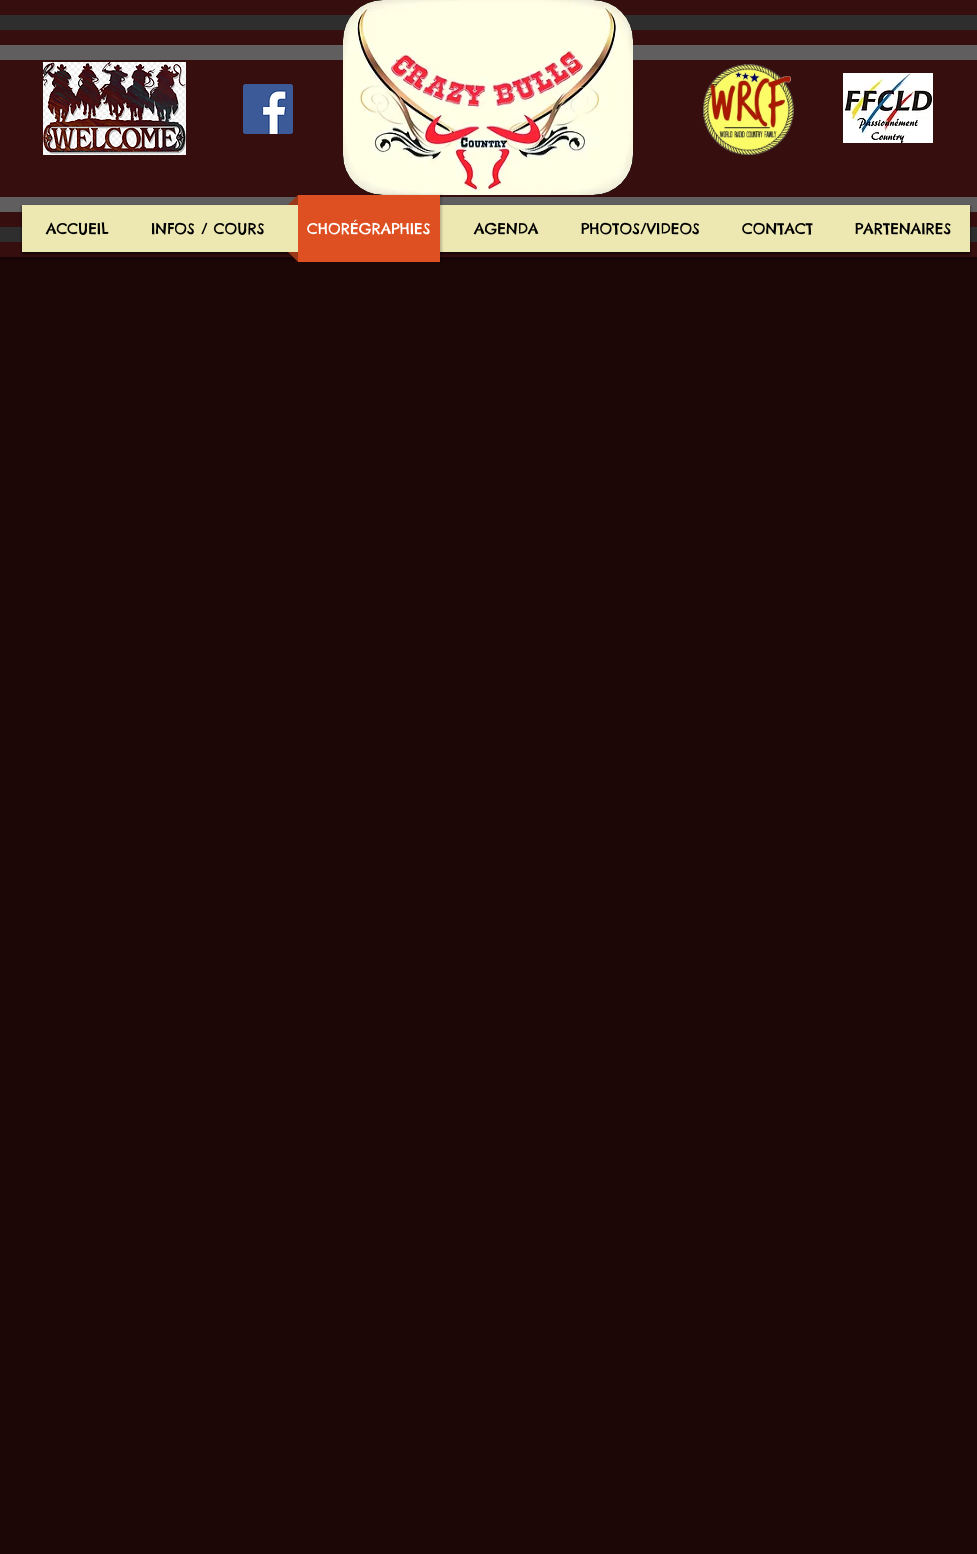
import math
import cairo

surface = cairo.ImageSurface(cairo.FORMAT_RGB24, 977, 1554)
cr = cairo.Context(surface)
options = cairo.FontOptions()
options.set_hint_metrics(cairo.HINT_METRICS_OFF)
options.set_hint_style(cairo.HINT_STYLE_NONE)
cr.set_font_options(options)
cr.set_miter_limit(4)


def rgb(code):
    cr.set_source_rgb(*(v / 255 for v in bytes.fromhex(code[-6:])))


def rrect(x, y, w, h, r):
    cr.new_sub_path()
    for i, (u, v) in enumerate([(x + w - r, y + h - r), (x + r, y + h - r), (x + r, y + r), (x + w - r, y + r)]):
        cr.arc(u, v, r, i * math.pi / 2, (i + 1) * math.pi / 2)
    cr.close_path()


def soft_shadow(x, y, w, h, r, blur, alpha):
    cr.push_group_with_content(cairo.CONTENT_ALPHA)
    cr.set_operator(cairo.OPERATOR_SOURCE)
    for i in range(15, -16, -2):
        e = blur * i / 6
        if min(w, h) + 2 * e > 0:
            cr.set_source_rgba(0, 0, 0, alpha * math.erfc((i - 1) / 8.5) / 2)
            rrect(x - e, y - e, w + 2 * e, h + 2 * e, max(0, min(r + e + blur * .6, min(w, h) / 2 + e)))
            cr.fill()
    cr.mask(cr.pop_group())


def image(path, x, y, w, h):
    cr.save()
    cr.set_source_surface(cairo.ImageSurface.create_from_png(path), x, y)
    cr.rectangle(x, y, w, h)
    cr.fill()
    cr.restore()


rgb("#1c0606")
cr.paint()
rgb("#000000")
soft_shadow(0, 0, 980, 257, 0, 2.5, 0.7)
for x, y, w, h, color in [
    (0, 0, 977, 257, "#360e0e"),
    (0, 15, 977, 15, "#2f2e2e"),
    (0, 227, 977, 15, "#2f2e2e"),
    (0, 45, 977, 15, "#605e5e"),
    (0, 197, 977, 15, "#605e5e"),
]:
    rgb(color)
    cr.rectangle(x, y, w, h)
    cr.fill()
image("img/1.png", 43, 62, 143, 93)
image("img/2.png", 243, 84, 50, 50)
rgb("#000000")
rrect(343, 0, 290, 195, 40)
cr.fill()
image("img/3.png", 343, 0, 290, 195)
image("img/4.png", 703, 64, 91, 91)
image("img/5.png", 843, 73, 90, 70)
rgb("#000000")
soft_shadow(22, 207, 948, 47, 0, 1.5, 0.7)
rgb("#ede7b2")
cr.rectangle(22, 205, 948, 47)
cr.fill()
rgb("#000000")
soft_shadow(300, 195, 142, 67, 0, 1, 0.2)
rgb("#9b3817")
cr.new_path()
cr.move_to(298, 205)
cr.line_to(288, 205)
cr.line_to(298, 195)
cr.close_path()
cr.fill()
rgb("#de5021")
cr.rectangle(298, 195, 142, 67)
cr.fill()
rgb("#9b3817")
cr.new_path()
cr.move_to(288, 252)
cr.line_to(298, 252)
cr.line_to(298, 262)
cr.close_path()
cr.fill()
cr.select_font_face("Chelsea Market")
cr.set_font_size(15)
rgb("#000000")
cr.move_to(46, 234)
cr.show_text("ACCUEIL")
cr.move_to(151, 234)
cr.show_text("INFOS / COURS")
rgb("#ffffff")
cr.move_to(307, 234)
cr.show_text("CHORÉGRAPHIES")
rgb("#000000")
for x, y, s in [
    (474, 234, "AGENDA"),
    (581, 234, "PHOTOS/VIDEOS"),
    (742, 234, "CONTACT"),
    (855, 234, "PARTENAIRES"),
]:
    cr.move_to(x, y)
    cr.show_text(s)
surface.write_to_png("page.png")
